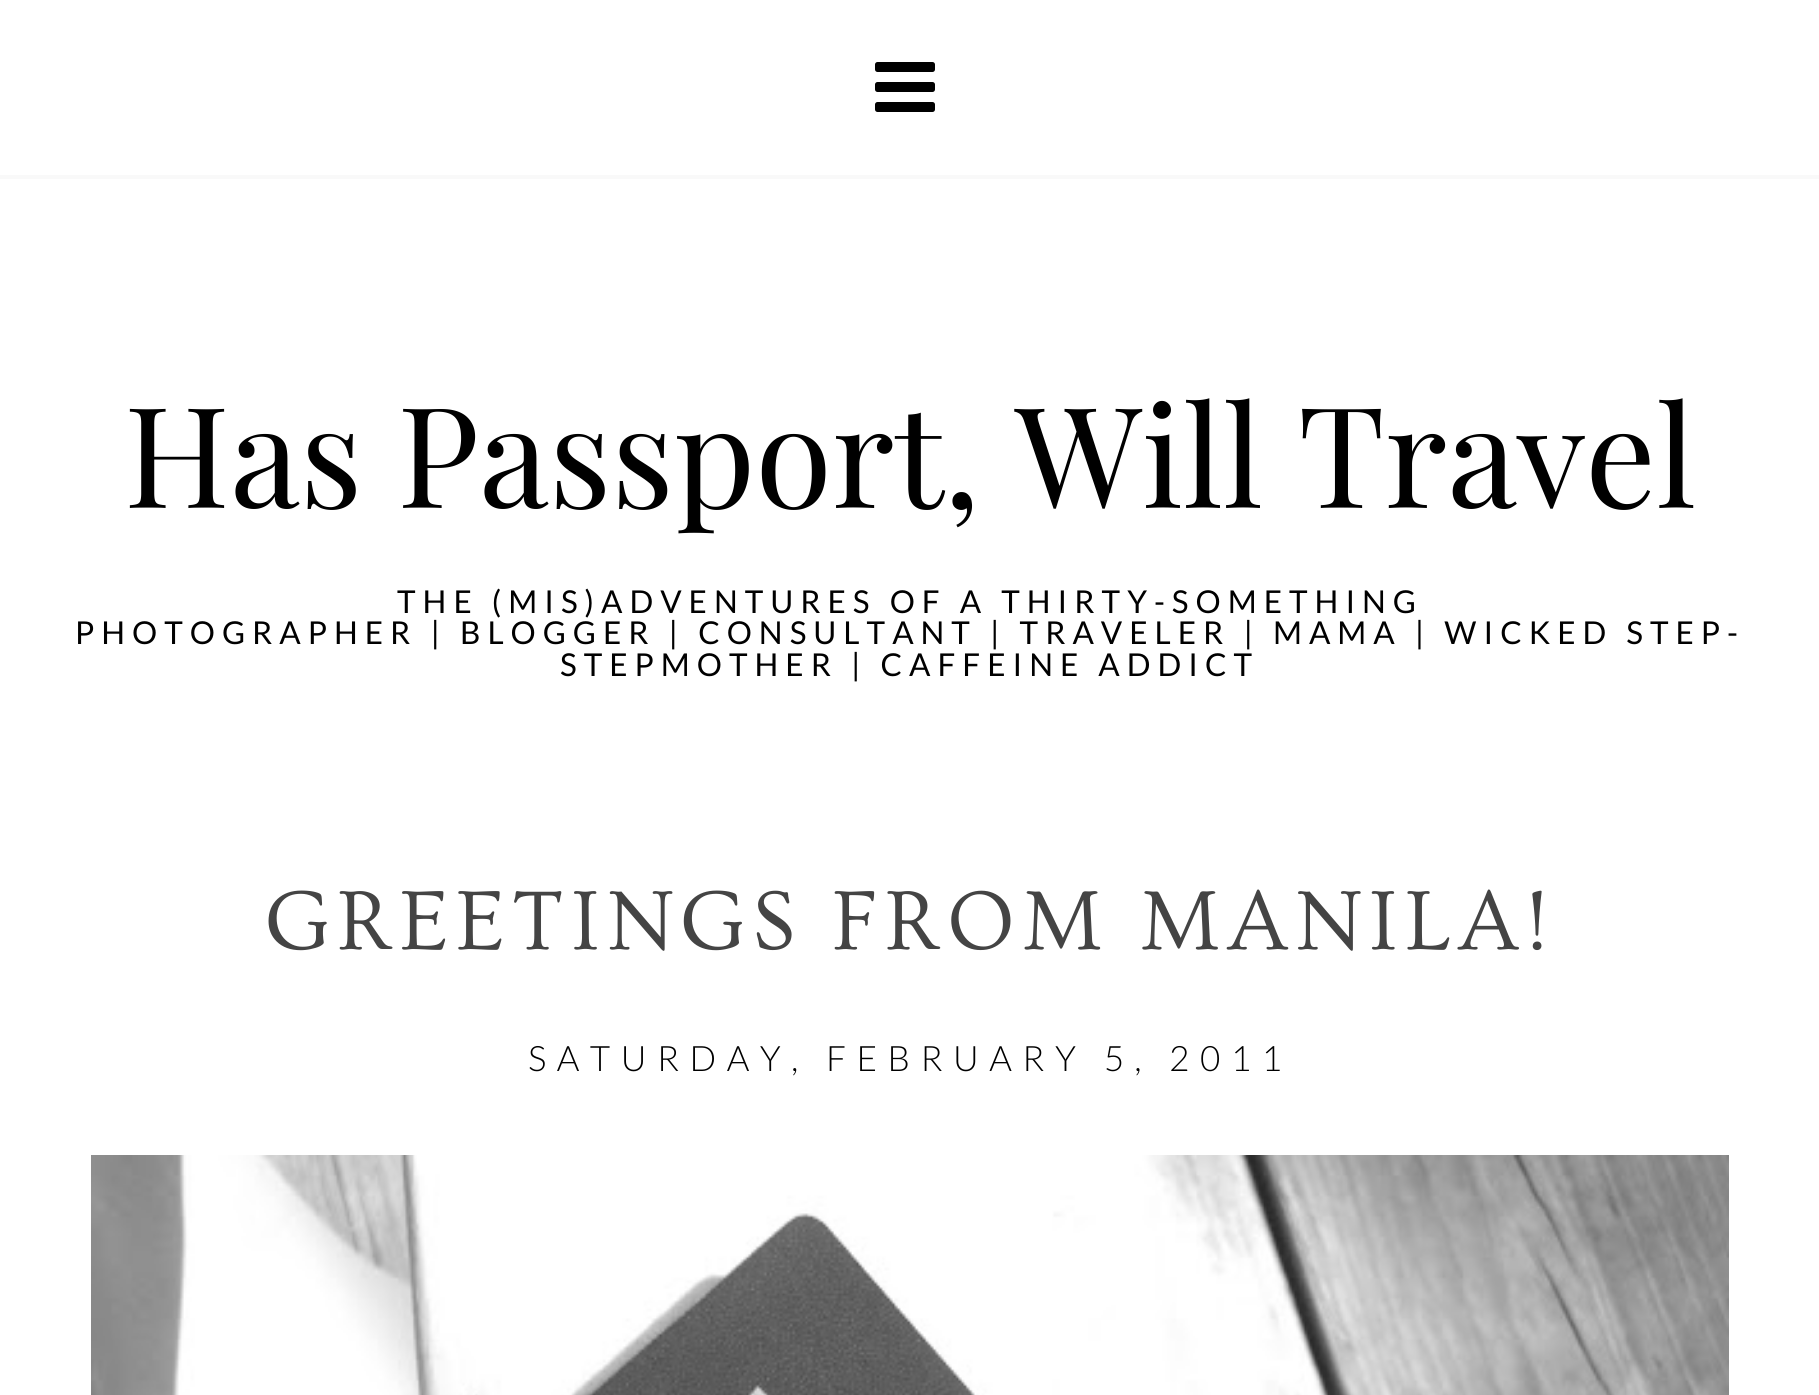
import math
import cairo

surface = cairo.ImageSurface(cairo.FORMAT_RGB24, 1819, 1395)
cr = cairo.Context(surface)
options = cairo.FontOptions()
options.set_hint_metrics(cairo.HINT_METRICS_OFF)
options.set_hint_style(cairo.HINT_STYLE_NONE)
cr.set_font_options(options)
cr.set_miter_limit(4)


def rgb(code):
    cr.set_source_rgb(*(v / 255 for v in bytes.fromhex(code[-6:])))


def tracked(x, y, s, letter, word):
    cr.move_to(x, y)
    for ch in s:
        cr.show_text(ch)
        cr.rel_move_to(letter + word * (ch == ' '), 0)


def image(path, x, y, w, h):
    cr.save()
    cr.set_source_surface(cairo.ImageSurface.create_from_png(path), x, y)
    cr.rectangle(x, y, w, h)
    cr.fill()
    cr.restore()


rgb("#ffffff")
cr.paint()
rgb("#f9f9f9")
cr.rectangle(0, 175, 1819, 4)
cr.fill()
image("img/1.png", 875, 62, 60, 50)
image("img/2.png", 91, 1155, 1638, 240)
cr.select_font_face("Playfair Display")
cr.set_font_size(140)
rgb("#000000")
cr.move_to(124, 508)
cr.show_text("Has Passport, Will Travel")
cr.select_font_face("Lato")
cr.set_font_size(31.5)
for x, y, s in [
    (397, 613, "THE (MIS)ADVENTURES OF A THIRTY-SOMETHING"),
    (75, 644, "PHOTOGRAPHER | BLOGGER | CONSULTANT | TRAVELER | MAMA | WICKED STEP-"),
    (560, 676, "STEPMOTHER | CAFFEINE ADDICT"),
]:
    tracked(x, y, s, 7, 0)
cr.select_font_face("Ovo")
cr.set_font_size(87.5)
rgb("#444444")
tracked(265, 949, "GREETINGS FROM MANILA!", 7, 0)
cr.select_font_face("Lato Light")
cr.set_font_size(35)
rgb("#000000")
tracked(528, 1071, "SATURDAY, FEBRUARY 5, 2011", 10.5, 0)
surface.write_to_png("page.png")
